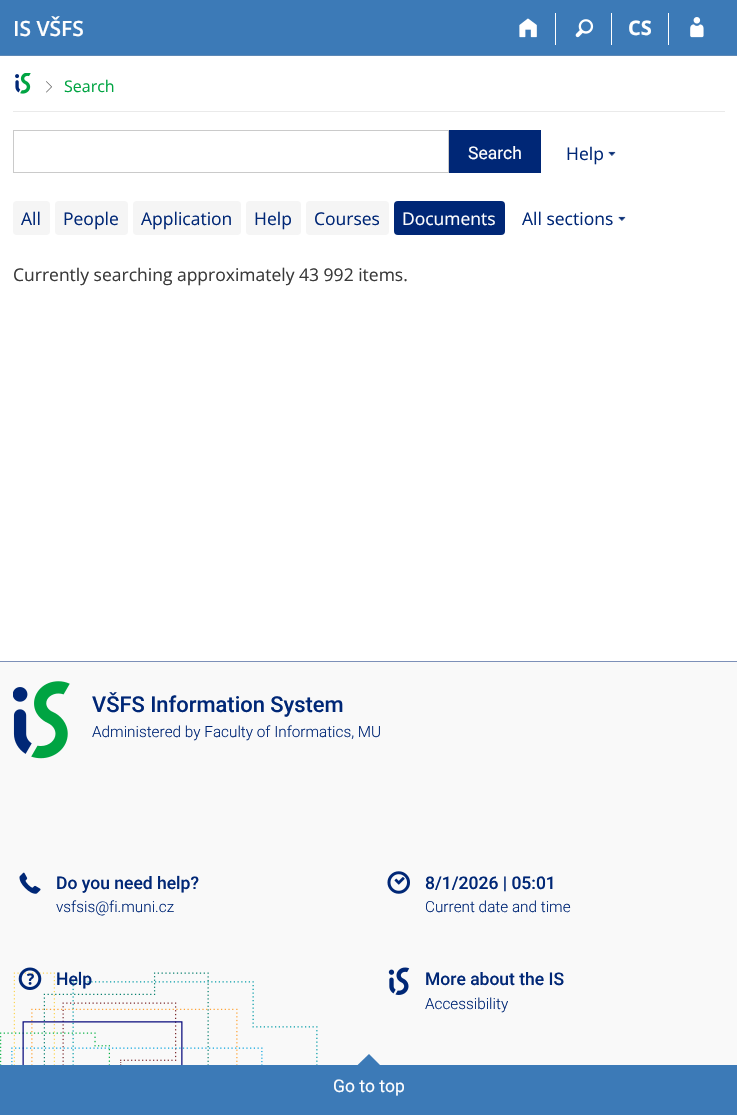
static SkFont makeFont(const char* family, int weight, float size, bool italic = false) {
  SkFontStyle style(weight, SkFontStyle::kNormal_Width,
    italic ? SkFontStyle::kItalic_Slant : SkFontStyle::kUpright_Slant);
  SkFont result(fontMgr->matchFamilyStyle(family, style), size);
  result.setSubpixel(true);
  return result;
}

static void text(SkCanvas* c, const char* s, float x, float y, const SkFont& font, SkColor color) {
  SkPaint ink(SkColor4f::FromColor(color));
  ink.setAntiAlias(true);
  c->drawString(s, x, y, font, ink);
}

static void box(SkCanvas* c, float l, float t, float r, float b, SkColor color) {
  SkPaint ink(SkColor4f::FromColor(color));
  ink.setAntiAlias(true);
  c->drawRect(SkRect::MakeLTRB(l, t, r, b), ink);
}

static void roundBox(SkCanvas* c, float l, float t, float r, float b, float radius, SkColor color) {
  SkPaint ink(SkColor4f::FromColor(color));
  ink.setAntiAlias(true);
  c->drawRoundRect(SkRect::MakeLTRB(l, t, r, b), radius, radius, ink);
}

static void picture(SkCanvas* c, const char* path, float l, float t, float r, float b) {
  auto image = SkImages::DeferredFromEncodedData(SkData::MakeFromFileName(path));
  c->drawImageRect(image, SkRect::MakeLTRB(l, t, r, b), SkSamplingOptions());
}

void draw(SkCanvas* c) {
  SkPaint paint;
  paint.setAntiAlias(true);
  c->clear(0xffffffff);
  box(c, 0, 0, 737, 55, 0xff3c7ab7);
  box(c, 0, 55, 737, 56, 0xff5c88b6);
  SkFont face1 = makeFont("Open Sans", 600, 21);
  text(c, "IS VŠFS", 13, 36, face1, 0xfffefefe);
  box(c, 555, 13, 556, 45, 0xffffffff);
  picture(c, "img_01.png", 519, 18, 537, 38);
  box(c, 611, 13, 612, 45, 0xffffffff);
  picture(c, "img_02.png", 575, 19, 594, 38);
  box(c, 668, 13, 669, 45, 0xffffffff);
  SkFont face2 = makeFont("Open Sans", 700, 20);
  text(c, "CS", 628, 35, face2, 0xfffefefe);
  picture(c, "img_03.png", 690, 17, 704, 38);
  picture(c, "img_04.png", 15, 73, 31, 94);
  picture(c, "img_05.png", 46, 81, 52, 93);
  SkFont face3 = makeFont("Open Sans", 400, 16);
  text(c, "Search", 64, 92, face3, 0xff00a442);
  box(c, 13, 111, 725, 112, 0xffeaeaea);
  paint.setStyle(SkPaint::kStroke_Style);
  paint.setStrokeWidth(1);
  paint.setColor(0xffcacaca);
  c->drawRect(SkRect::MakeLTRB(13.5f, 130.5f, 448.5f, 172.5f), paint);
  box(c, 449, 130, 541, 173, 0xff002776);
  SkFont face4 = makeFont("Roboto", 400, 17.5f);
  text(c, "Search", 468, 159, face4, 0xfffefefe);
  SkFont face5 = makeFont("Open Sans", 400, 17.5f);
  text(c, "Help", 566, 160, face5, 0xff002776);
  picture(c, "img_06.png", 608, 151, 616, 156);
  roundBox(c, 13, 201, 50, 235, 4, 0xfff5f5f5);
  text(c, "All", 21, 225, face5, 0xff002776);
  roundBox(c, 55, 201, 128, 235, 4, 0xfff5f5f5);
  text(c, "People", 63, 225, face5, 0xff002776);
  roundBox(c, 133, 201, 241, 235, 4, 0xfff5f5f5);
  text(c, "Application", 141, 225, face5, 0xff002776);
  roundBox(c, 246, 201, 301, 235, 4, 0xfff5f5f5);
  text(c, "Help", 254, 225, face5, 0xff002776);
  roundBox(c, 306, 201, 389, 235, 4, 0xfff5f5f5);
  text(c, "Courses", 314, 225, face5, 0xff002776);
  roundBox(c, 394, 201, 505, 235, 4, 0xff002776);
  text(c, "Documents", 402, 225, face5, 0xfffefefe);
  text(c, "All sections", 522, 225, face5, 0xff002776);
  picture(c, "img_06.png", 618, 216, 626, 221);
  text(c, "Currently searching approximately 43 992 items.", 13, 281, face5, 0xff3a3a3a);
  box(c, 0, 662, 737, 1065, 0xfff9f9f9);
  box(c, 0, 661, 737, 662, 0xff7d90b8);
  picture(c, "img_07.png", 0, 972, 318, 1065);
  picture(c, "img_08.png", 13, 681, 70, 759);
  SkFont face6 = makeFont("Roboto", 500, 21.9f);
  text(c, "VŠFS Information System", 92, 712, face6, 0xff002776);
  SkFont face7 = makeFont("Roboto", 300, 15.3f);
  text(c, "Administered by Faculty of Informatics, MU", 92, 737, face7, 0xff002776);
  picture(c, "img_09.png", 19, 872, 41, 894);
  SkFont face8 = makeFont("Roboto", 500, 17.5f);
  text(c, "Do you need help?", 56, 889, face8, 0xff002776);
  text(c, "vsfsis@fi.muni.cz", 56, 912, face7, 0xff002776);
  picture(c, "img_10.png", 18, 967, 42, 990);
  text(c, "Help", 56, 985, face8, 0xff002776);
  picture(c, "img_11.png", 387, 871, 410, 894);
  text(c, "8/1/2026 | 05:01", 425, 889, face8, 0xff002776);
  text(c, "Current date and time", 425, 912, face7, 0xff002776);
  picture(c, "img_12.png", 388, 967, 410, 995);
  text(c, "More about the IS", 425, 985, face8, 0xff002776);
  text(c, "Accessibility", 425, 1009, face7, 0xff002776);
  box(c, 0, 1065, 737, 1115, 0xff3c7ab7);
  paint.setStyle(SkPaint::kFill_Style);
  paint.setColor(0xff3c7ab7);
  c->drawPath(SkPathBuilder().moveTo(382.5f, 1067.5f).lineTo(355, 1067.5f).lineTo(369, 1054).close().detach(), paint);
  text(c, "Go to top", 333, 1092, face4, 0xfffefefe);
}
